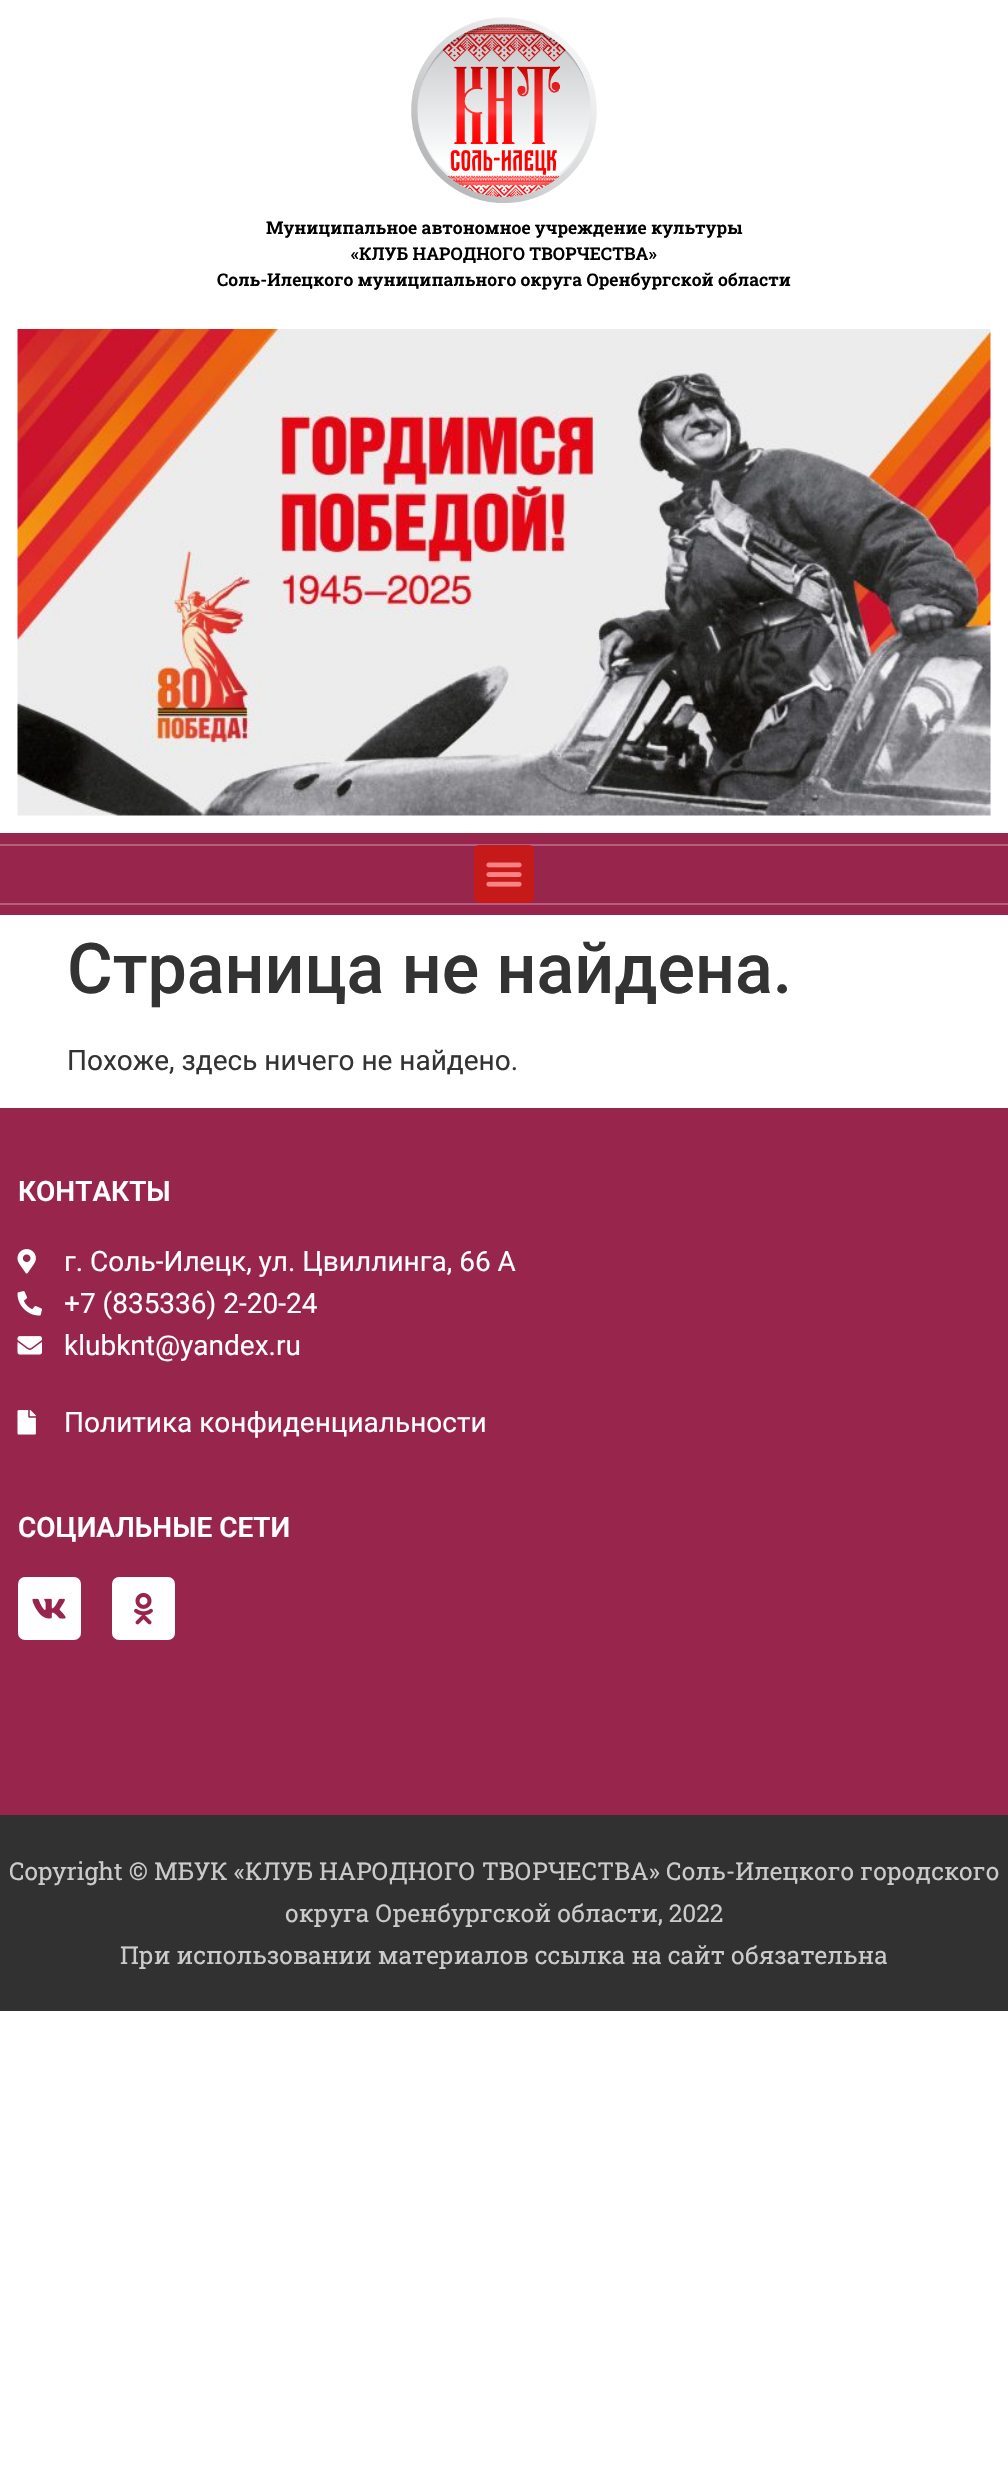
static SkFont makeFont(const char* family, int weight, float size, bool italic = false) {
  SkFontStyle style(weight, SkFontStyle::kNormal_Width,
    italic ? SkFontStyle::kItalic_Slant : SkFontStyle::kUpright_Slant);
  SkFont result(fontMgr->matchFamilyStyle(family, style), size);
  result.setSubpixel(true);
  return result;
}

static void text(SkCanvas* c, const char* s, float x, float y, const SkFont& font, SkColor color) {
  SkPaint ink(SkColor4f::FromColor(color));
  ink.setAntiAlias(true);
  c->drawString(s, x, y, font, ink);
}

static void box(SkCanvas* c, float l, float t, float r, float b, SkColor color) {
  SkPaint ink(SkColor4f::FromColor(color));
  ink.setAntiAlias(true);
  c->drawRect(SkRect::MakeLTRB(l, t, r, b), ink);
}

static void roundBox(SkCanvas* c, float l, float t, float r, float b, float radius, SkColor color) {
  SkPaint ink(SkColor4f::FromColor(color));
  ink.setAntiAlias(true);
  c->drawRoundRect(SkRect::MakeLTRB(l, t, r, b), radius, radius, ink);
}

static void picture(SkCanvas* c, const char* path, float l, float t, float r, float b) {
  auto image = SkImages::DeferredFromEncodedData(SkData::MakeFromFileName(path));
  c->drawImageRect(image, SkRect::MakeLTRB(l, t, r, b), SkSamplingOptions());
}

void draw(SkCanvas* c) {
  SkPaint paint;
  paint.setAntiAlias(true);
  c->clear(0xffffffff);
  picture(c, "img_01.png", 411, 17, 597, 203);
  SkFont face1 = makeFont("Roboto Slab", 600, 17.5f);
  text(c, "Муниципальное автономное учреждение культуры", 266, 234, face1, 0xff000000);
  text(c, "«КЛУБ НАРОДНОГО ТВОРЧЕСТВА»", 351, 260, face1, 0xff000000);
  text(c, "Соль-Илецкого муниципального округа Оренбургской области", 217, 286, face1, 0xff000000);
  picture(c, "img_02.png", 17, 329, 991, 816);
  box(c, 0, 833, 1008, 915, 0xff98254c);
  box(c, 0, 844, 1008, 846, 0xffb65e80);
  box(c, 0, 903, 1008, 905, 0xffb65e80);
  roundBox(c, 474, 845, 534, 903, 5, 0xffc61a1a);
  picture(c, "img_03.png", 486, 862, 522, 887);
  SkFont face2 = makeFont("Roboto", 500, 70);
  text(c, "Страница не найдена.", 67, 993, face2, 0xff333333);
  SkFont face3 = makeFont("Roboto", 400, 28);
  text(c, "Похоже, здесь ничего не найдено.", 67, 1070, face3, 0xff333333);
  box(c, 0, 1108, 1008, 1815, 0xff98254c);
  SkFont face4 = makeFont("Roboto", 600, 28);
  text(c, "КОНТАКТЫ", 18, 1201, face4, 0xffffffff);
  picture(c, "img_04.png", 17, 1249, 36, 1274);
  text(c, "г. Соль-Илецк, ул. Цвиллинга, 66 А", 64, 1271, face3, 0xffffffff);
  picture(c, "img_05.png", 17, 1291, 42, 1316);
  text(c, "+7 (835336) 2-20-24", 64, 1313, face3, 0xffffffff);
  picture(c, "img_06.png", 17, 1336, 42, 1355);
  text(c, "klubknt@yandex.ru", 64, 1355, face3, 0xffffffff);
  picture(c, "img_07.png", 17, 1410, 36, 1435);
  text(c, "Политика конфиденциальности", 64, 1432, face3, 0xffffffff);
  text(c, "СОЦИАЛЬНЫЕ СЕТИ", 18, 1537, face4, 0xffffffff);
  roundBox(c, 18, 1577, 81, 1640, 7, 0xffffffff);
  picture(c, "img_08.png", 32, 1598, 66, 1619);
  roundBox(c, 112, 1577, 175, 1640, 7, 0xffffffff);
  picture(c, "img_09.png", 134, 1592, 153, 1625);
  box(c, 0, 1815, 1008, 2011, 0xff313131);
  SkFont face5 = makeFont("Roboto Slab", 400, 24.5f);
  text(c, "Copyright © МБУК «КЛУБ НАРОДНОГО ТВОРЧЕСТВА» Соль-Илецкого городского", 9, 1880, face5, 0xffcbcbcb);
  text(c, "округа Оренбургской области, 2022", 285, 1922, face5, 0xffcbcbcb);
  text(c, "При использовании материалов ссылка на сайт обязательна", 120, 1964, face5, 0xffcbcbcb);
}
